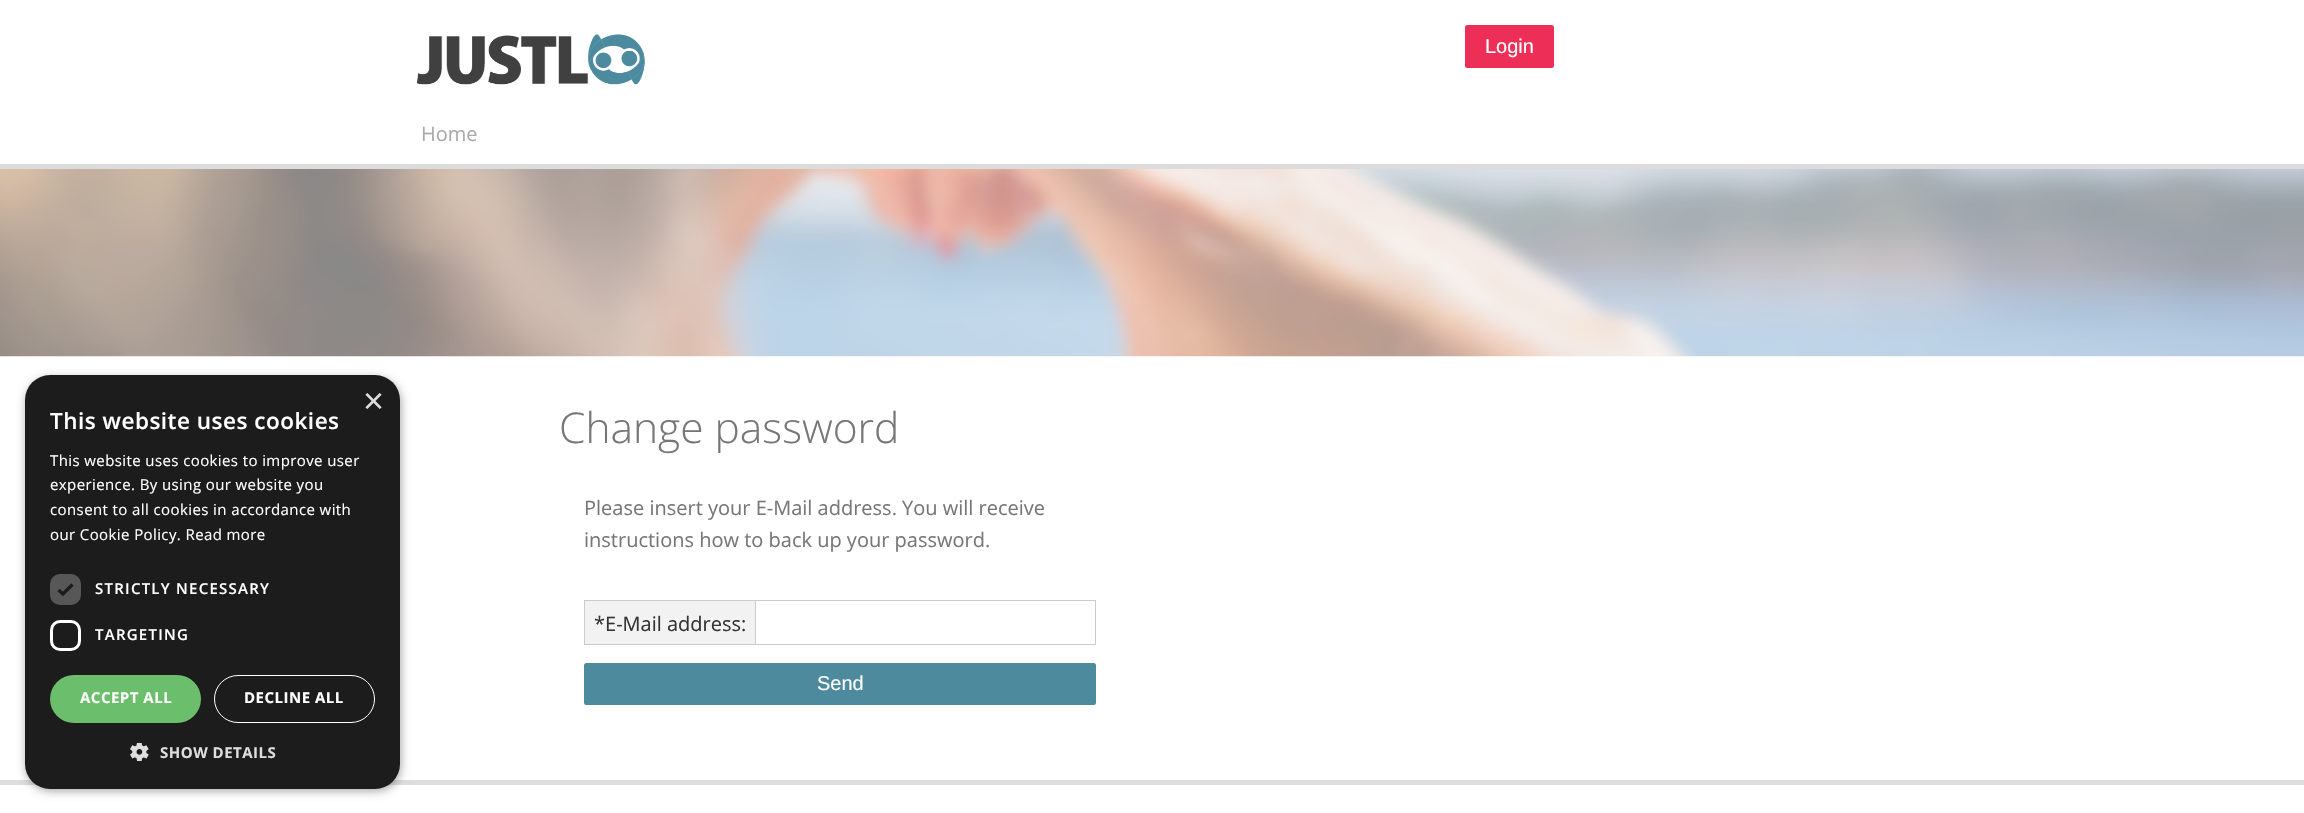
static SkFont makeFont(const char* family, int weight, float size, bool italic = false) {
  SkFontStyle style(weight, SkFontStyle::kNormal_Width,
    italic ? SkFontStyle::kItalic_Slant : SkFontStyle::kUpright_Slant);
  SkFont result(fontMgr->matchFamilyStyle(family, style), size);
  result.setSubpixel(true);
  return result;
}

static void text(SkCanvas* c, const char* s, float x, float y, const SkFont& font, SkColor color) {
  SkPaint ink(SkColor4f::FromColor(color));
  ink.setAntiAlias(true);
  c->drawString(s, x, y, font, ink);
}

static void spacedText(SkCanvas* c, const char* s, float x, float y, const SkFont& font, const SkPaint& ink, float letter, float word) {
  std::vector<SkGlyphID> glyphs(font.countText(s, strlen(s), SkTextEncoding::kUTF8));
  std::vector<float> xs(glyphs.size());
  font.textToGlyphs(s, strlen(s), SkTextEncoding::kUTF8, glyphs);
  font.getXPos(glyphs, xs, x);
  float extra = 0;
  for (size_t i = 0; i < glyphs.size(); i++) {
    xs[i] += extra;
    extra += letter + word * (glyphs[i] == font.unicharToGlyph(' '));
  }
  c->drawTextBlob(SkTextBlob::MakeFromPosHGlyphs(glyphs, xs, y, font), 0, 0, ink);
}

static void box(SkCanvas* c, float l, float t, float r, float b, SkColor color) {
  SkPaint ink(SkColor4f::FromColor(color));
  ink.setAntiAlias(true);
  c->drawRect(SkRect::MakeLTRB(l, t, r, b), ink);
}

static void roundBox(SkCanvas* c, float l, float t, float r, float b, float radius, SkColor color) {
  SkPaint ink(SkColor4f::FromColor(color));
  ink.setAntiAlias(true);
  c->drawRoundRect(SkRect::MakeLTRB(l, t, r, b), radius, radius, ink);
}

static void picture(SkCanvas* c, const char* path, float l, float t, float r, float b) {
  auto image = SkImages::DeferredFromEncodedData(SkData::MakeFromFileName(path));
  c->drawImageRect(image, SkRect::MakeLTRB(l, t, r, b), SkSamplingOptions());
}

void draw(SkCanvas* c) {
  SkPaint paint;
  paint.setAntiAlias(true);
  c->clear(0xffffffff);
  box(c, 0, 780, 2304, 785, 0xffdddddd);
  paint.setColor(0x59000000);
  paint.setMaskFilter(SkMaskFilter::MakeBlur(kNormal_SkBlurStyle, 5));
  c->drawRoundRect(SkRect::MakeLTRB(26, 378, 401, 791), 25, 25, paint);
  paint.setMaskFilter(nullptr);
  roundBox(c, 25, 375, 400, 789, 25, 0xff1c1c1c);
  SkFont face1 = makeFont("Liberation Sans", 400, 36);
  text(c, "×", 363, 413, face1, 0xffdddddd);
  SkFont face2 = makeFont("Open Sans", 600, 22.5f);
  paint.setColor(0xffffffff);
  spacedText(c, "This website uses cookies", 50, 429, face2, paint, 0.5f, 0);
  SkFont face3 = makeFont("Open Sans", 400, 15);
  spacedText(c, "This website uses cookies to improve user", 50, 466, face3, paint, 0.4f, 0);
  spacedText(c, "experience. By using our website you", 50, 490, face3, paint, 0.4f, 0);
  spacedText(c, "consent to all cookies in accordance with", 50, 515, face3, paint, 0.4f, 0);
  spacedText(c, "our Cookie Policy. Read more", 50, 540, face3, paint, 0.4f, 0);
  roundBox(c, 50, 574, 81, 605, 10, 0xff575757);
  paint.setStyle(SkPaint::kStroke_Style);
  paint.setStrokeWidth(3.3f);
  paint.setColor(0xff1c1c1c);
  c->drawPath(SkPathBuilder().moveTo(58.5f, 590).lineTo(63, 594).lineTo(72.5f, 584.5f).detach(), paint);
  SkFont face4 = makeFont("Open Sans", 600, 15);
  paint.setStyle(SkPaint::kFill_Style);
  paint.setColor(0xffffffff);
  spacedText(c, "STRICTLY NECESSARY", 95, 594, face4, paint, 1.25f, 0);
  paint.setStyle(SkPaint::kStroke_Style);
  paint.setStrokeWidth(3);
  c->drawRoundRect(SkRect::MakeLTRB(51.5f, 621.5f, 79.5f, 649.5f), 8.5f, 8.5f, paint);
  paint.setStyle(SkPaint::kFill_Style);
  spacedText(c, "TARGETING", 95, 640, face4, paint, 1.25f, 0);
  roundBox(c, 50, 675, 201, 723, 24, 0xff6bbe6b);
  SkFont face5 = makeFont("Open Sans", 700, 15);
  spacedText(c, "ACCEPT ALL", 80, 703, face5, paint, 0.5f, 0);
  paint.setStyle(SkPaint::kStroke_Style);
  paint.setStrokeWidth(1);
  c->drawRoundRect(SkRect::MakeLTRB(214.5f, 675.5f, 374.5f, 722.5f), 23.5f, 23.5f, paint);
  paint.setStyle(SkPaint::kFill_Style);
  spacedText(c, "DECLINE ALL", 244, 703, face5, paint, 0.5f, 0);
  picture(c, "img_01.png", 130, 743, 149, 761);
  paint.setColor(0xffdddddd);
  spacedText(c, "SHOW DETAILS", 160, 758, face5, paint, 0.5f, 0);
  picture(c, "img_02.png", 416, 34, 645, 85);
  roundBox(c, 1465, 25, 1554, 68, 2.5f, 0xffed2f57);
  SkFont face6 = makeFont("Liberation Sans", 400, 20);
  text(c, "Login", 1485, 53, face6, 0xffffffff);
  box(c, 0, 164, 2304, 169, 0xffdcdcdc);
  SkFont face7 = makeFont("Open Sans", 400, 20);
  text(c, "Home", 421, 141, face7, 0xffaaaaaa);
  picture(c, "img_03.png", 0, 169, 2304, 357);
  SkFont face8 = makeFont("Open Sans", 300, 42.5f);
  text(c, "Change password", 559, 443, face8, 0xff777777);
  text(c, "Please insert your E-Mail address. You will receive", 584, 515, face7, 0xff777777);
  text(c, "instructions how to back up your password.", 584, 547, face7, 0xff777777);
  box(c, 585, 601, 755, 644, 0xfff2f2f2);
  box(c, 584, 600, 755, 601, 0xffcccccc);
  box(c, 584, 644, 755, 645, 0xffcccccc);
  box(c, 584, 600, 585, 645, 0xffcccccc);
  text(c, "*E-Mail address:", 594, 631, face7, 0xff333333);
  paint.setStyle(SkPaint::kStroke_Style);
  paint.setColor(0xffcccccc);
  c->drawRect(SkRect::MakeLTRB(755.5f, 600.5f, 1095.5f, 644.5f), paint);
  roundBox(c, 584, 663, 1096, 705, 2.5f, 0xff4d8a9e);
  text(c, "Send", 817, 690, face6, 0xffffffff);
}
